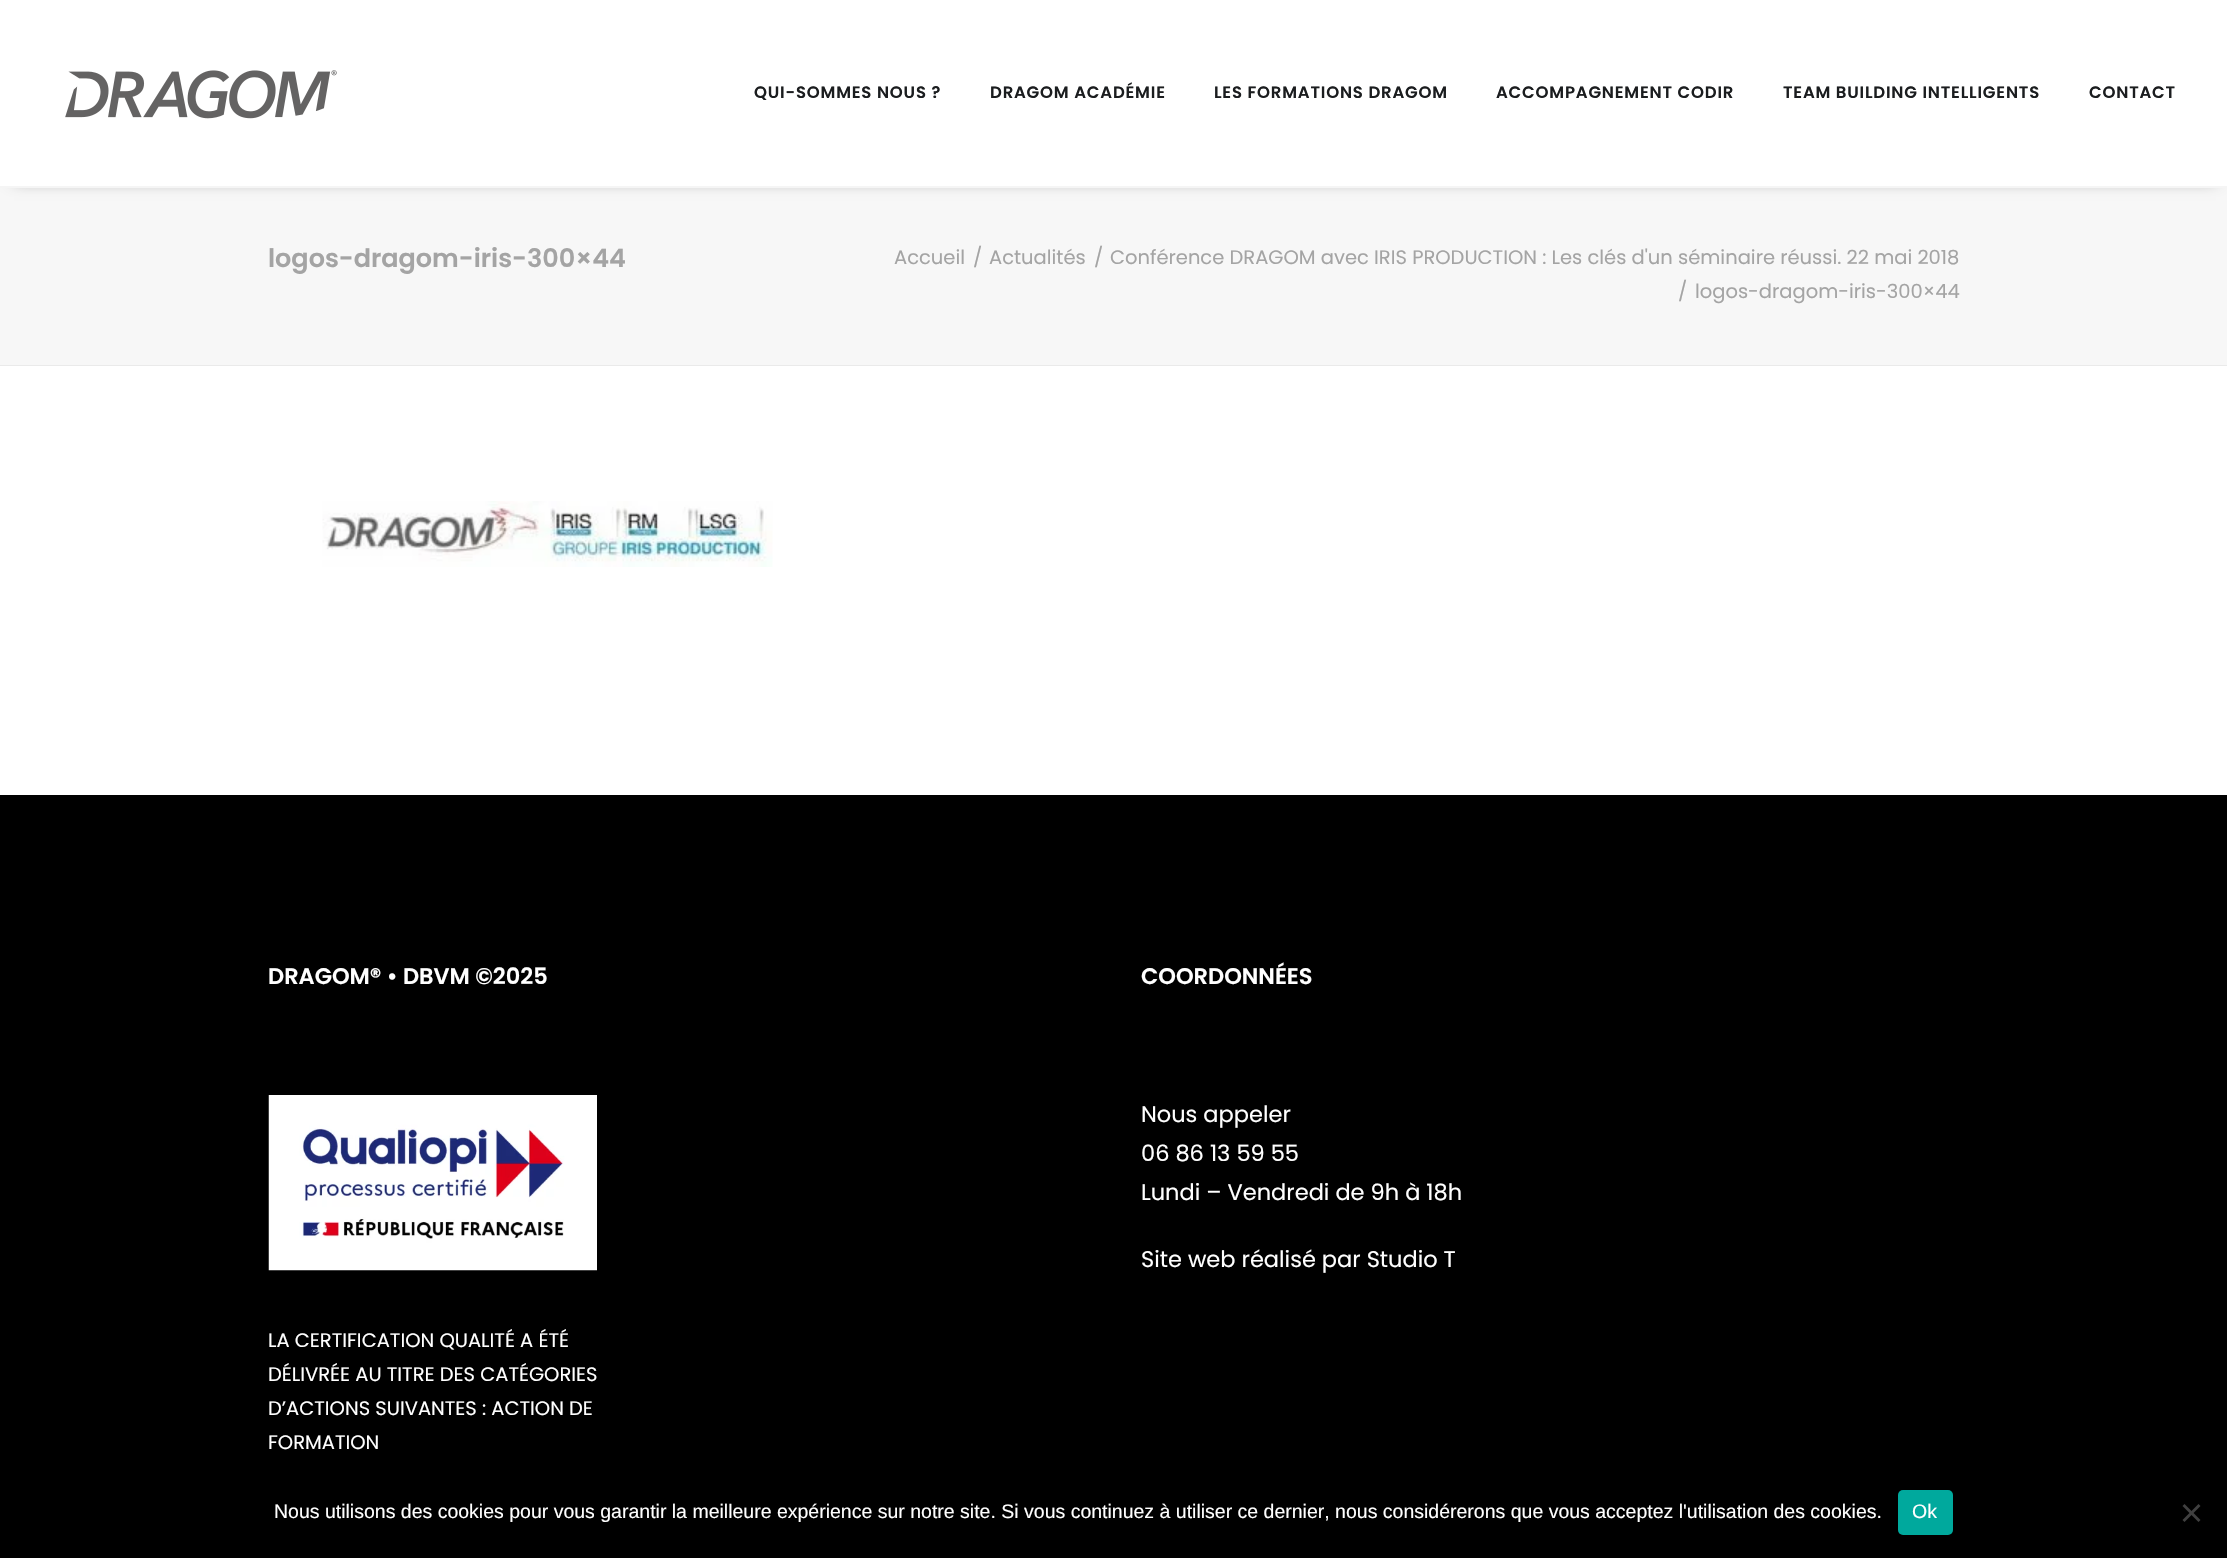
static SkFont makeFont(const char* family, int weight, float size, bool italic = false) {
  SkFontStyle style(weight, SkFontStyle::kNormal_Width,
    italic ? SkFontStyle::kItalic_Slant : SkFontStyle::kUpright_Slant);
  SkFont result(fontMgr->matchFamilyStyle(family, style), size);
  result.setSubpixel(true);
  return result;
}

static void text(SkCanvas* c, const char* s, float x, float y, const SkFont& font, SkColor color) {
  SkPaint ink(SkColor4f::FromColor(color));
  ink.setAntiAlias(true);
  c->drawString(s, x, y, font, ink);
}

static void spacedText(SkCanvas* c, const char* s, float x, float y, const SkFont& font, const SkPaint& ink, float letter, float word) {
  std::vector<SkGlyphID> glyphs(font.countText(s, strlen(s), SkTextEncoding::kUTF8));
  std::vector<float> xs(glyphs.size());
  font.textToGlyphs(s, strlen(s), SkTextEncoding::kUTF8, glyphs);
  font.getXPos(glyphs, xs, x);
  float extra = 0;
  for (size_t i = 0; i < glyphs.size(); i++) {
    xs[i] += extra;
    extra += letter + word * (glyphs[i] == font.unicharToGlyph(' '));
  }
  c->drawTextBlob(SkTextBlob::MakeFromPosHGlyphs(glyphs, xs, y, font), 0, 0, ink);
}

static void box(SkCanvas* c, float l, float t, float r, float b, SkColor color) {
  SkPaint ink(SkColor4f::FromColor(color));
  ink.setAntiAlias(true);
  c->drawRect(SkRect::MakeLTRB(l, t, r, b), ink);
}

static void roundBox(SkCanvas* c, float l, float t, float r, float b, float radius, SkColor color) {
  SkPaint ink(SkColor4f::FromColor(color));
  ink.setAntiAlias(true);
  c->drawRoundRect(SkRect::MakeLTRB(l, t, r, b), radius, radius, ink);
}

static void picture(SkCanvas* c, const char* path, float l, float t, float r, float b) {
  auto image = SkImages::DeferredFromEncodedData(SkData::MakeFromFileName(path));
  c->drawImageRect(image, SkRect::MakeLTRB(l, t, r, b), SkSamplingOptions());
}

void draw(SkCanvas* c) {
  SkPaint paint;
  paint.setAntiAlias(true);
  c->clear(0xfff7f7f7);
  paint.setColor(0x99000000);
  paint.setMaskFilter(SkMaskFilter::MakeBlur(kNormal_SkBlurStyle, 7.5f));
  c->drawRect(SkRect::MakeLTRB(14, 21, 2216, 179), paint);
  paint.setMaskFilter(nullptr);
  box(c, 0, 0, 2227, 186, 0xffffffff);
  box(c, 0, 186, 2227, 188, 0xfff5f5f5);
  picture(c, "img_01.png", 65, 70, 337, 119);
  SkFont face1 = makeFont("Poppins", 600, 16.5f);
  paint.setColor(0xff1b1d1f);
  spacedText(c, "QUI-SOMMES NOUS ?", 754, 98, face1, paint, 0.8f, 0);
  spacedText(c, "DRAGOM ACADÉMIE", 990, 98, face1, paint, 0.8f, 0);
  spacedText(c, "LES FORMATIONS DRAGOM", 1214, 98, face1, paint, 0.8f, 0);
  spacedText(c, "ACCOMPAGNEMENT CODIR", 1496, 98, face1, paint, 0.8f, 0);
  spacedText(c, "TEAM BUILDING INTELLIGENTS", 1783, 98, face1, paint, 0.8f, 0);
  spacedText(c, "CONTACT", 2089, 98, face1, paint, 0.8f, 0);
  box(c, 0, 365, 2227, 366, 0xffeaeaea);
  SkFont face2 = makeFont("Poppins", 600, 25.5f);
  text(c, "logos-dragom-iris-300×44", 268, 267, face2, 0xffa4a4a4);
  SkFont face3 = makeFont("Poppins", 400, 19.5f);
  text(c, "Accueil", 894, 264, face3, 0xffa4a4a4);
  text(c, "/", 973, 264, face3, 0xffa4a4a4);
  text(c, "Actualités", 989, 264, face3, 0xffa4a4a4);
  text(c, "/", 1094, 264, face3, 0xffa4a4a4);
  text(c, "Conférence DRAGOM avec IRIS PRODUCTION : Les clés d'un séminaire réussi. 22 mai 2018", 1110, 264, face3, 0xffa4a4a4);
  text(c, "/", 1678, 298, face3, 0xffa4a4a4);
  text(c, "logos-dragom-iris-300×44", 1695, 298, face3, 0xffa4a4a4);
  box(c, 0, 366, 2227, 795, 0xffffffff);
  picture(c, "img_02.png", 322, 501, 773, 567);
  box(c, 0, 795, 2227, 1558, 0xff000000);
  SkFont face4 = makeFont("Poppins", 600, 22.5f);
  text(c, "DRAGOM® • DBVM ©2025", 268, 984, face4, 0xffffffff);
  picture(c, "img_03.png", 268, 1095, 597, 1271);
  text(c, "LA CERTIFICATION QUALITÉ A ÉTÉ", 268, 1347, face3, 0xffffffff);
  text(c, "DÉLIVRÉE AU TITRE DES CATÉGORIES", 268, 1381, face3, 0xffffffff);
  text(c, "D’ACTIONS SUIVANTES : ACTION DE", 268, 1415, face3, 0xffffffff);
  text(c, "FORMATION", 268, 1449, face3, 0xffffffff);
  text(c, "COORDONNÉES", 1141, 984, face4, 0xffffffff);
  SkFont face5 = makeFont("Poppins", 400, 22.5f);
  text(c, "Nous appeler", 1141, 1122, face5, 0xffffffff);
  text(c, "06 86 13 59 55", 1141, 1161, face5, 0xffffffff);
  text(c, "Lundi – Vendredi de 9h à 18h", 1141, 1200, face5, 0xffffffff);
  text(c, "Site web réalisé par Studio T", 1141, 1267, face5, 0xffffffff);
  SkFont face6 = makeFont("Liberation Sans", 400, 19.5f);
  text(c, "Nous utilisons des cookies pour vous garantir la meilleure expérience sur notre site. Si vous continuez à utiliser ce dernier, nous considérerons que vous acceptez l'utilisation des cookies.", 274, 1518, face6, 0xffffffff);
  roundBox(c, 1898, 1490, 1953, 1535, 5, 0xff00a99d);
  text(c, "Ok", 1912, 1518, face6, 0xffffffff);
  paint.setColor(0xff404040);
  c->drawPath(SkPathBuilder().moveTo(2198.5f, 1504).lineTo(2200.5f, 1506).lineTo(2184.5f, 1522).lineTo(2182.5f, 1520).close().detach(), paint);
  c->drawPath(SkPathBuilder().moveTo(2182.5f, 1506).lineTo(2184.5f, 1504).lineTo(2200.5f, 1520).lineTo(2198.5f, 1522).close().detach(), paint);
}
